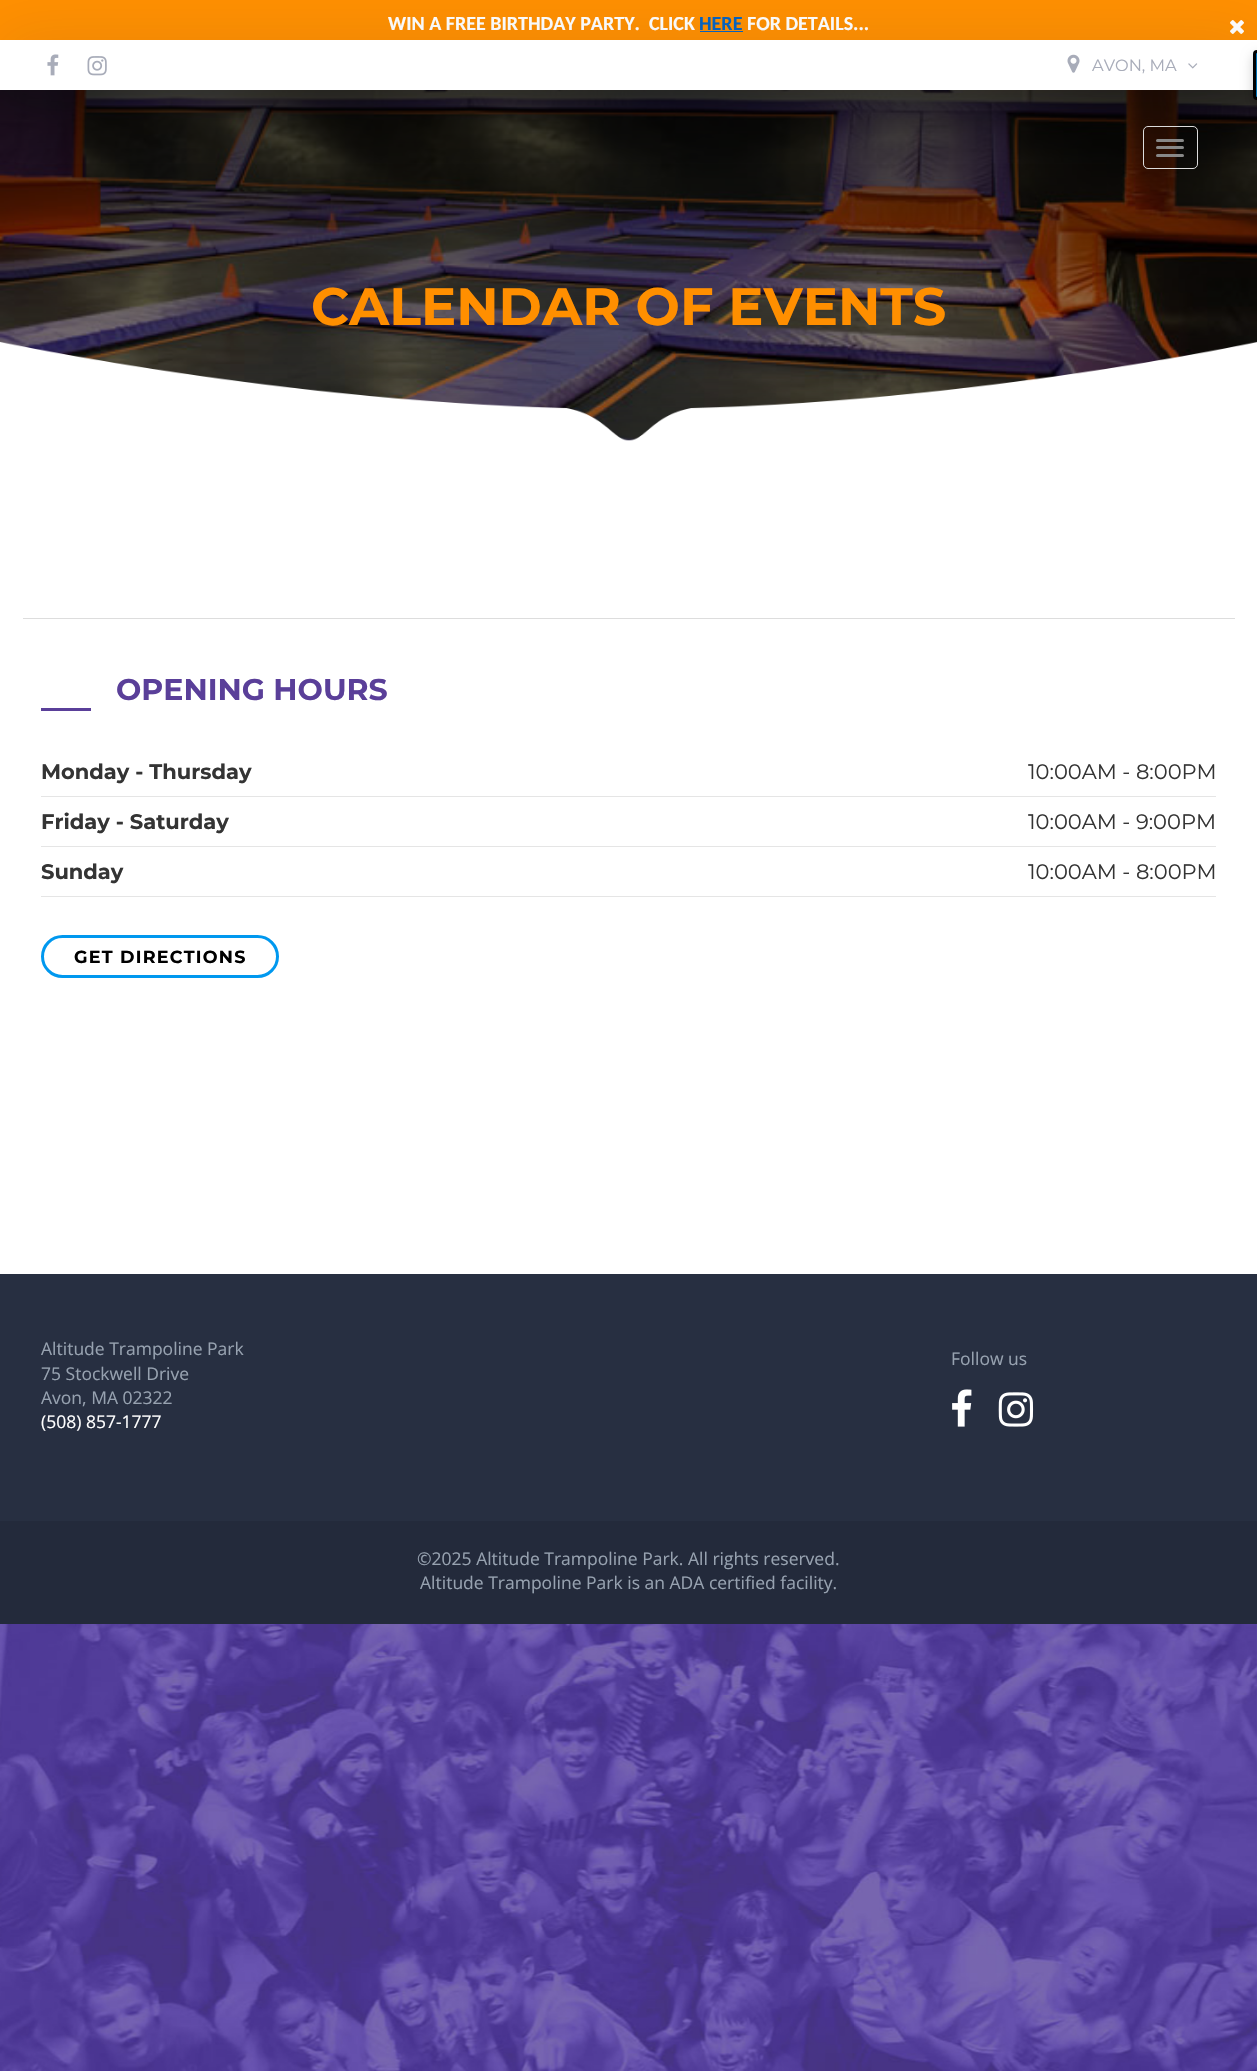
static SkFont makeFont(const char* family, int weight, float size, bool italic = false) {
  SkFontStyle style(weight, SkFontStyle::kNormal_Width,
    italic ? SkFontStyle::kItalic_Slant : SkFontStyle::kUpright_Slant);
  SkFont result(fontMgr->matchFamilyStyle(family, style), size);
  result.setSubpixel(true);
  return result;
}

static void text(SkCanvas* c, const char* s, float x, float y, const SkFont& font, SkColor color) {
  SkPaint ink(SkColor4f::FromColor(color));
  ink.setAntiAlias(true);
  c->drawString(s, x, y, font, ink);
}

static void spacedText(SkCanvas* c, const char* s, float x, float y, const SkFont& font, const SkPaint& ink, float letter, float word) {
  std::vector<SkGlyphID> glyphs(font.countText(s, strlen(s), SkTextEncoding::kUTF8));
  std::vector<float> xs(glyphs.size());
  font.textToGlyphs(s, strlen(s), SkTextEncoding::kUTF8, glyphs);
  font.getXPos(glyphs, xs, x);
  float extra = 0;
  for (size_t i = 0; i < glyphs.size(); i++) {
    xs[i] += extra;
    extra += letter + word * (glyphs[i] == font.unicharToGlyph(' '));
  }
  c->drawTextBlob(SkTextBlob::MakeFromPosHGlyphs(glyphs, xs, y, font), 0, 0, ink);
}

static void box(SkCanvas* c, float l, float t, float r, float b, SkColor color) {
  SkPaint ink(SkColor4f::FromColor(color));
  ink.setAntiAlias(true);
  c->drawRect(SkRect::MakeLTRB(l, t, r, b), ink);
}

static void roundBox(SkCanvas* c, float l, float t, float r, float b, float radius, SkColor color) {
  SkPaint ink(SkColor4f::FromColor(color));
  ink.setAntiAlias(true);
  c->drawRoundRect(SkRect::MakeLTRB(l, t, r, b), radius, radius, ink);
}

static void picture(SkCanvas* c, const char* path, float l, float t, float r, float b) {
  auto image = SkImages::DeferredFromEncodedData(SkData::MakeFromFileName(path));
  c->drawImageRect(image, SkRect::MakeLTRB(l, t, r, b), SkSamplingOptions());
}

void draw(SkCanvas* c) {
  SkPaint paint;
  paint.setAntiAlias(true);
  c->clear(0xffffffff);
  box(c, 0, 0, 1257, 40, 0xffff8f00);
  SkFont face1 = makeFont("Carlito", 700, 20);
  text(c, "WIN A FREE BIRTHDAY PARTY.  CLICK", 388, 30, face1, 0xffffffff);
  text(c, "HERE", 699, 30, face1, 0xff0563c1);
  box(c, 700, 31, 743, 32, 0xff0563c1);
  text(c, "FOR DETAILS...", 747, 30, face1, 0xffffffff);
  picture(c, "img_01.png", 1230, 20, 1244, 34);
  picture(c, "img_06.png", 0, 90, 1257, 441);
  paint.setStyle(SkPaint::kStroke_Style);
  paint.setStrokeWidth(1);
  paint.setColor(0xffdddddd);
  c->drawRoundRect(SkRect::MakeLTRB(1143.5f, 126.5f, 1197.5f, 168.5f), 4.5f, 4.5f, paint);
  roundBox(c, 1156, 139, 1184, 142, 1.5f, 0xff888888);
  roundBox(c, 1156, 146, 1184, 149, 1.5f, 0xff888888);
  roundBox(c, 1156, 154, 1184, 157, 1.5f, 0xff888888);
  paint.setStyle(SkPaint::kFill_Style);
  paint.setColor(0x1a212736);
  paint.setMaskFilter(SkMaskFilter::MakeBlur(kNormal_SkBlurStyle, 31));
  c->drawRect(SkRect::MakeLTRB(0, 40, 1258, 90), paint);
  paint.setMaskFilter(nullptr);
  box(c, 0, 40, 1257, 90, 0xffffffff);
  picture(c, "img_02.png", 47, 54, 59, 76);
  picture(c, "img_03.png", 87, 56, 107, 76);
  picture(c, "img_04.png", 1067, 54, 1080, 73);
  SkFont face2 = makeFont("Montserrat", 400, 16.25f);
  text(c, "AVON, MA", 1092, 71, face2, 0xffa8acb9);
  picture(c, "img_05.png", 1188, 63, 1198, 69);
  paint.setColor(0x33000000);
  paint.setMaskFilter(SkMaskFilter::MakeBlur(kNormal_SkBlurStyle, 6));
  c->drawRoundRect(SkRect::MakeLTRB(1253, 55, 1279, 105), 4, 4, paint);
  paint.setMaskFilter(nullptr);
  paint.setColor(0xff0073b7);
  c->drawPath(SkPathBuilder().moveTo(1257, 51.5f).lineTo(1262.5f, 51.5f).lineTo(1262.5f, 98.5f).lineTo(1257, 98.5f).cubicTo(1255.5f, 98.5f, 1254.5f, 97.5f, 1254.5f, 96).lineTo(1254.5f, 54).cubicTo(1254.5f, 52.5f, 1255.5f, 51.5f, 1257, 51.5f).close().detach(), paint);
  paint.setStyle(SkPaint::kStroke_Style);
  paint.setStrokeWidth(3);
  paint.setColor(0xff000000);
  c->drawPath(SkPathBuilder().moveTo(1257, 51.5f).lineTo(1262.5f, 51.5f).lineTo(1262.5f, 98.5f).lineTo(1257, 98.5f).cubicTo(1255.5f, 98.5f, 1254.5f, 97.5f, 1254.5f, 96).lineTo(1254.5f, 54).cubicTo(1254.5f, 52.5f, 1255.5f, 51.5f, 1257, 51.5f).close().detach(), paint);
  SkFont face3 = makeFont("Montserrat", 700, 52.5f);
  text(c, "CALENDAR OF EVENTS", 311, 325, face3, 0xffff8f00);
  picture(c, "img_07.png", 0, 341, 1257, 461);
  box(c, 23, 618, 1235, 619, 0xffdddddd);
  SkFont face4 = makeFont("Montserrat", 700, 30);
  text(c, "OPENING HOURS", 116, 700, face4, 0xff5a3f99);
  box(c, 41, 708, 91, 711, 0xff5a3f99);
  box(c, 41, 796, 1216, 797, 0xffe5e5e5);
  SkFont face5 = makeFont("Montserrat", 700, 21);
  text(c, "Monday - Thursday", 41, 779, face5, 0xff343434);
  SkFont face6 = makeFont("Montserrat", 400, 21);
  text(c, "10:00AM - 8:00PM", 1028, 779, face6, 0xff343434);
  box(c, 41, 846, 1216, 847, 0xffe5e5e5);
  text(c, "Friday - Saturday", 41, 829, face5, 0xff343434);
  text(c, "10:00AM - 9:00PM", 1028, 829, face6, 0xff343434);
  box(c, 41, 896, 1216, 897, 0xffe5e5e5);
  text(c, "Sunday", 41, 879, face5, 0xff343434);
  text(c, "10:00AM - 8:00PM", 1028, 879, face6, 0xff343434);
  paint.setColor(0xff0098ef);
  c->drawRoundRect(SkRect::MakeLTRB(42.5f, 936.5f, 277.5f, 976.5f), 20, 20, paint);
  SkFont face7 = makeFont("Montserrat", 700, 17.5f);
  paint.setStyle(SkPaint::kFill_Style);
  paint.setColor(0xff000000);
  spacedText(c, "GET DIRECTIONS", 74, 963, face7, paint, 1.25f, 0);
  box(c, 0, 1274, 1257, 1521, 0xff272f41);
  SkFont face8 = makeFont("Open Sans", 400, 17.5f);
  text(c, "Altitude Trampoline Park", 41, 1355, face8, 0xff97a2b0);
  text(c, "75 Stockwell Drive", 41, 1380, face8, 0xff97a2b0);
  text(c, "Avon, MA 02322", 41, 1404, face8, 0xff97a2b0);
  text(c, "(508) 857-1777", 41, 1428, face8, 0xffffffff);
  text(c, "Follow us", 951, 1365, face8, 0xff97a2b0);
  picture(c, "img_08.png", 952, 1389, 972, 1427);
  picture(c, "img_09.png", 998, 1392, 1034, 1427);
  box(c, 0, 1521, 1257, 1624, 0xff232a3b);
  text(c, "©2025 Altitude Trampoline Park. All rights reserved.", 417, 1565, face8, 0xff97a2b0);
  text(c, "Altitude Trampoline Park is an ADA certified facility.", 420, 1589, face8, 0xff97a2b0);
  picture(c, "img_10.png", 0, 1624, 1257, 2071);
}
